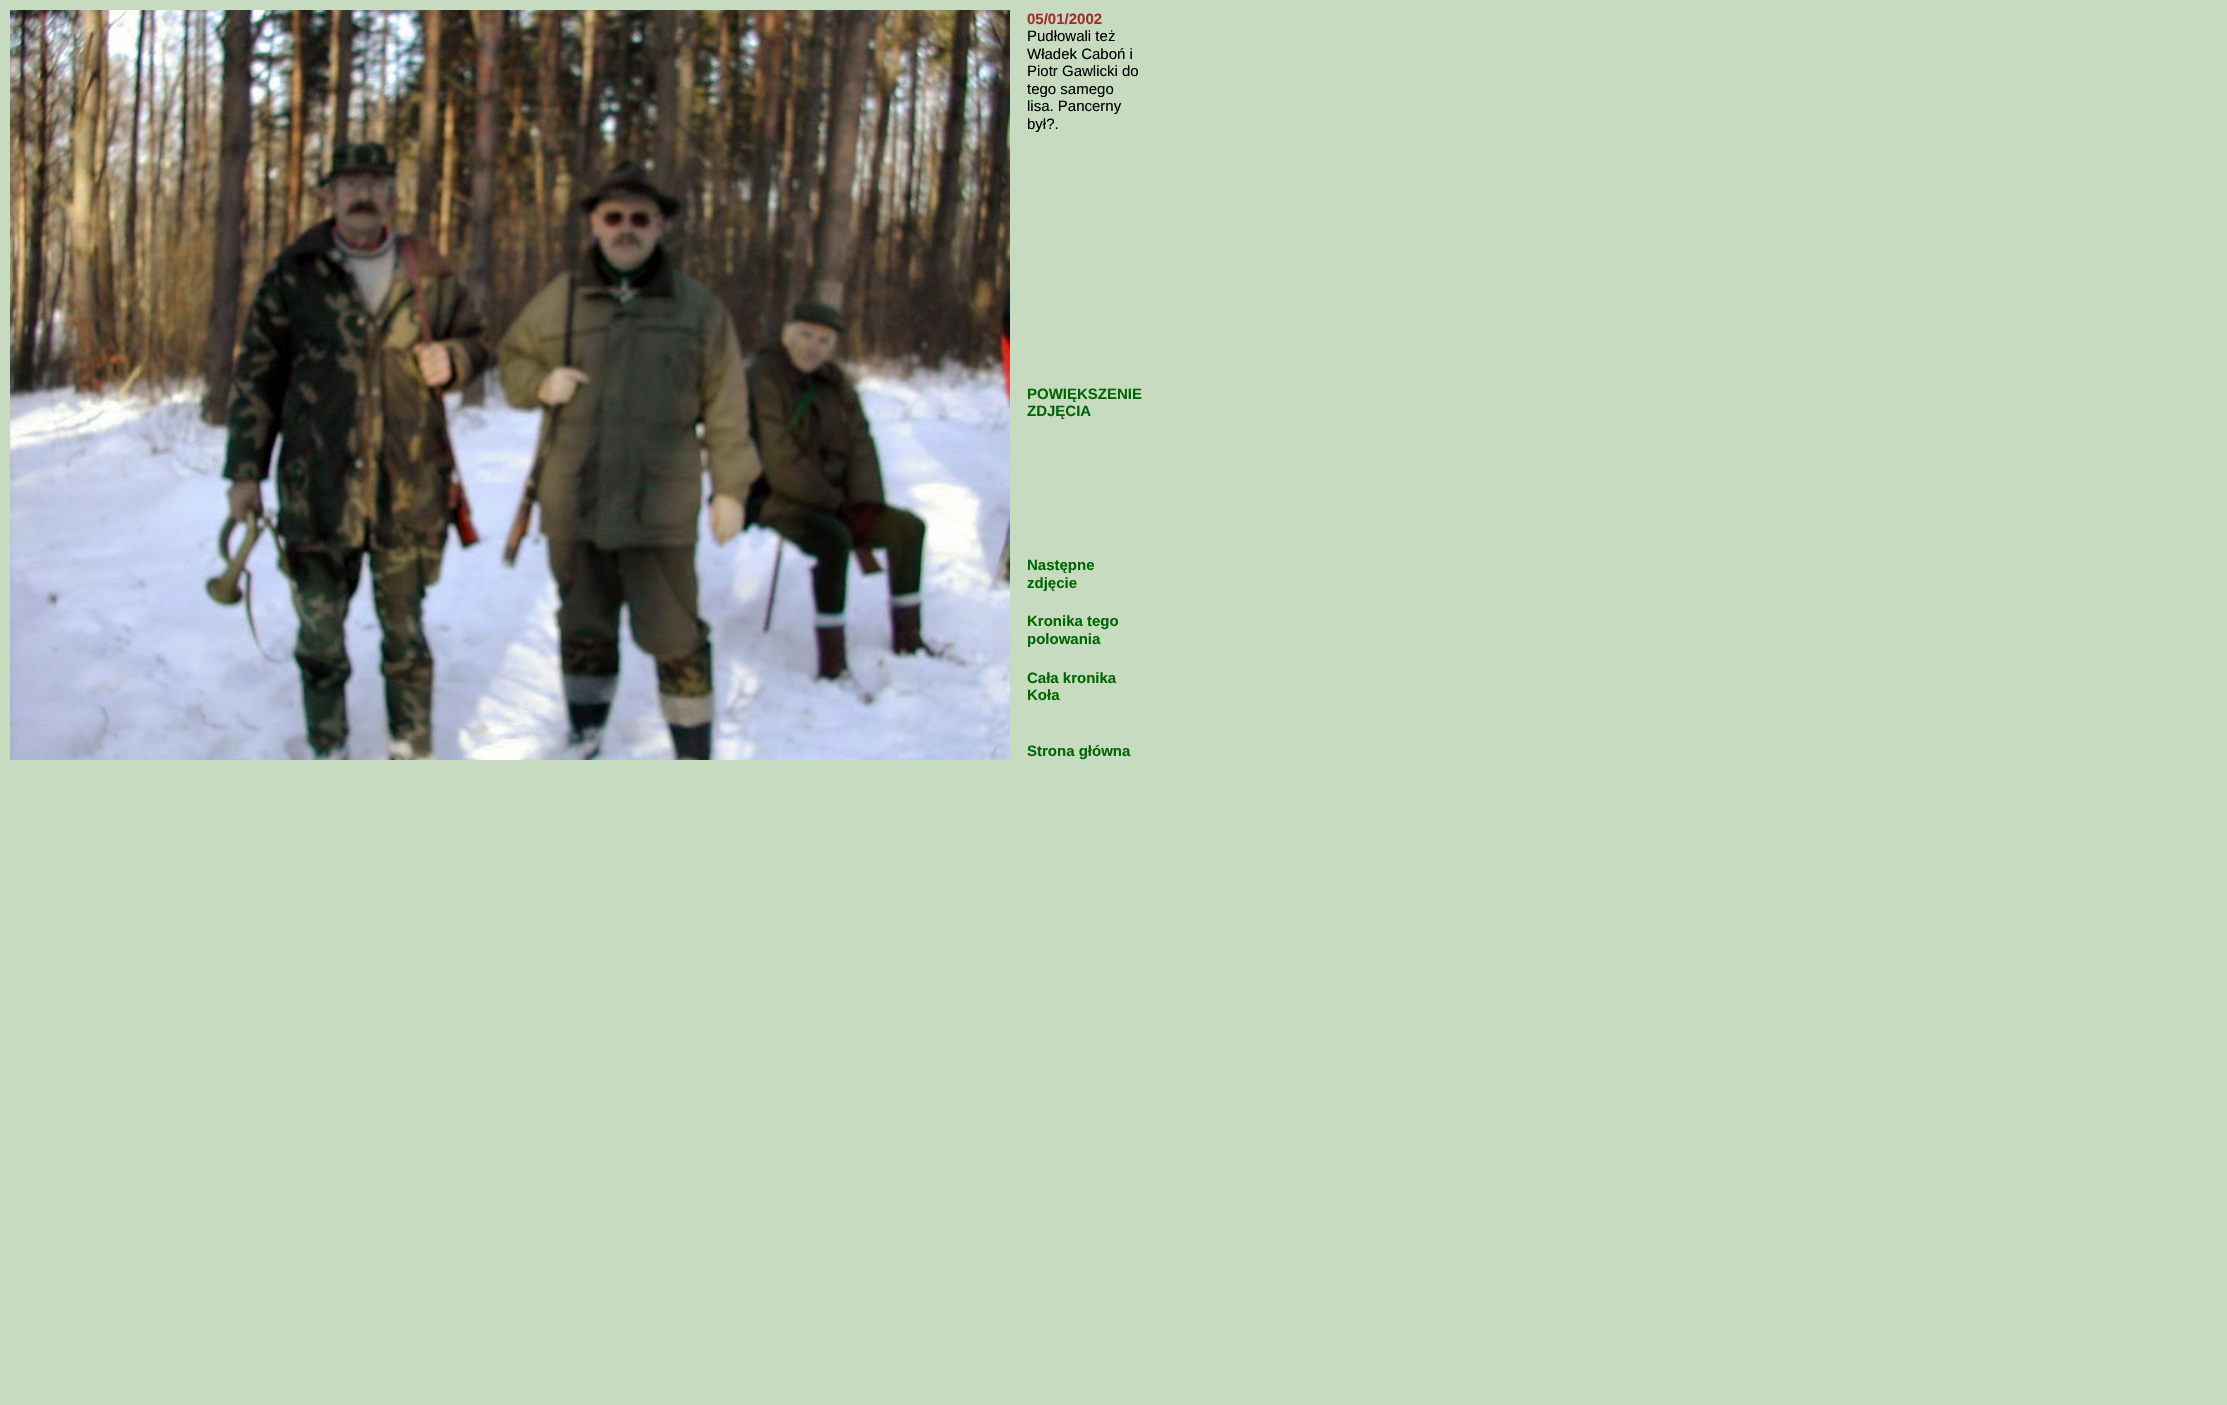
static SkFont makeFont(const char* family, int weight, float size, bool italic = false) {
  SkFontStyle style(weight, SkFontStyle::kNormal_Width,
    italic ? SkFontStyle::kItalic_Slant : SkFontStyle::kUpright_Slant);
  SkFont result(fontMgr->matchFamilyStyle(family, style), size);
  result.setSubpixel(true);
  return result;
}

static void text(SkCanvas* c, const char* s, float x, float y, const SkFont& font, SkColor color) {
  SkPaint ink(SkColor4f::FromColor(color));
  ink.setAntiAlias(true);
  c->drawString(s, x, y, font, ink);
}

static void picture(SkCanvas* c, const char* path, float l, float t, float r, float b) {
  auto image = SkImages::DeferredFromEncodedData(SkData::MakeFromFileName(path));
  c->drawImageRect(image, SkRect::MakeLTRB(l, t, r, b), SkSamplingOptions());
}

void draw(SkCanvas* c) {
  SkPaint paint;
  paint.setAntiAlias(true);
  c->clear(0xffc7dbc1);
  picture(c, "img_01.png", 10, 10, 1010, 760);
  SkFont face1 = makeFont("Liberation Sans", 700, 15);
  text(c, "05/01/2002", 1027, 24, face1, 0xffa52a2a);
  SkFont face2 = makeFont("Liberation Sans", 400, 15);
  text(c, "Pudłowali też", 1027, 41, face2, 0xff000000);
  text(c, "Władek Caboń i", 1027, 59, face2, 0xff000000);
  text(c, "Piotr Gawlicki do", 1027, 76, face2, 0xff000000);
  text(c, "tego samego", 1027, 94, face2, 0xff000000);
  text(c, "lisa. Pancerny", 1027, 111, face2, 0xff000000);
  text(c, "był?.", 1027, 129, face2, 0xff000000);
  text(c, "POWIĘKSZENIE", 1027, 399, face1, 0xff006600);
  text(c, "ZDJĘCIA", 1027, 416, face1, 0xff006600);
  text(c, "Następne", 1027, 570, face1, 0xff006600);
  text(c, "zdjęcie", 1027, 588, face1, 0xff006600);
  text(c, "Kronika tego", 1027, 626, face1, 0xff006600);
  text(c, "polowania", 1027, 644, face1, 0xff006600);
  text(c, "Cała kronika", 1027, 683, face1, 0xff006600);
  text(c, "Koła", 1027, 700, face1, 0xff006600);
  text(c, "Strona główna", 1027, 756, face1, 0xff006600);
}
